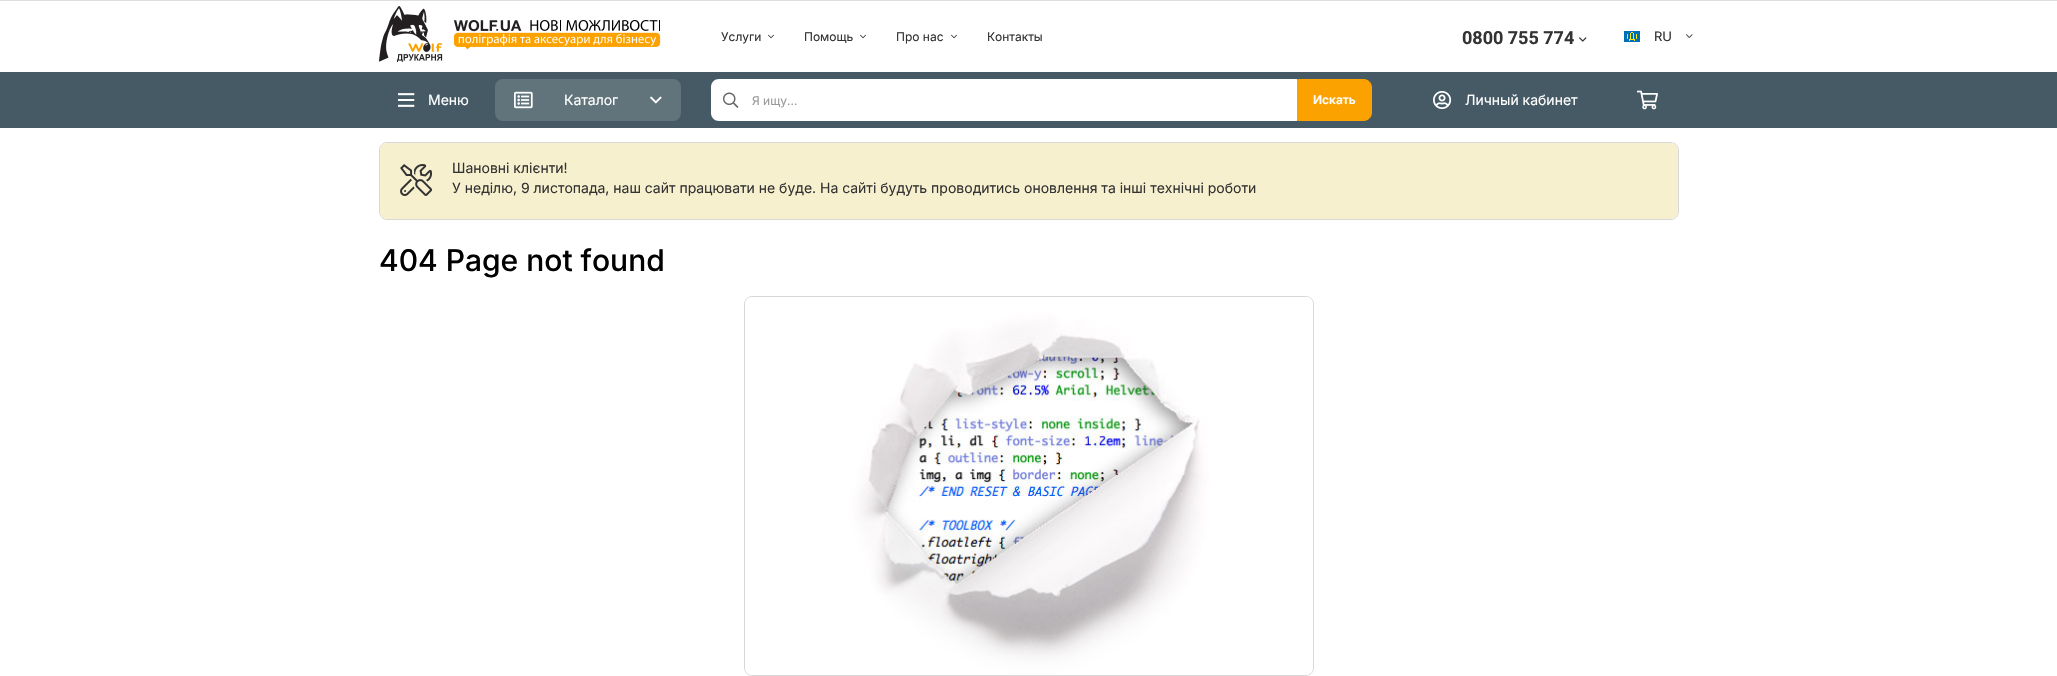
static SkFont makeFont(const char* family, int weight, float size, bool italic = false) {
  SkFontStyle style(weight, SkFontStyle::kNormal_Width,
    italic ? SkFontStyle::kItalic_Slant : SkFontStyle::kUpright_Slant);
  SkFont result(fontMgr->matchFamilyStyle(family, style), size);
  result.setSubpixel(true);
  return result;
}

static void text(SkCanvas* c, const char* s, float x, float y, const SkFont& font, SkColor color) {
  SkPaint ink(SkColor4f::FromColor(color));
  ink.setAntiAlias(true);
  c->drawString(s, x, y, font, ink);
}

static void box(SkCanvas* c, float l, float t, float r, float b, SkColor color) {
  SkPaint ink(SkColor4f::FromColor(color));
  ink.setAntiAlias(true);
  c->drawRect(SkRect::MakeLTRB(l, t, r, b), ink);
}

static void roundBox(SkCanvas* c, float l, float t, float r, float b, float radius, SkColor color) {
  SkPaint ink(SkColor4f::FromColor(color));
  ink.setAntiAlias(true);
  c->drawRoundRect(SkRect::MakeLTRB(l, t, r, b), radius, radius, ink);
}

static void picture(SkCanvas* c, const char* path, float l, float t, float r, float b) {
  auto image = SkImages::DeferredFromEncodedData(SkData::MakeFromFileName(path));
  c->drawImageRect(image, SkRect::MakeLTRB(l, t, r, b), SkSamplingOptions());
}

void draw(SkCanvas* c) {
  SkPaint paint;
  paint.setAntiAlias(true);
  c->clear(0xffffffff);
  box(c, 0, 0, 2057, 1, 0xffdedede);
  picture(c, "img_01.png", 379, 6, 443, 62);
  picture(c, "img_02.png", 453, 20, 661, 50);
  SkFont face1 = makeFont("Inter", 400, 12);
  text(c, "Услуги", 721, 41, face1, 0xff333333);
  picture(c, "img_03.png", 768, 34, 774, 39);
  text(c, "Помощь", 804, 41, face1, 0xff333333);
  picture(c, "img_03.png", 860, 34, 866, 39);
  text(c, "Про нас", 896, 41, face1, 0xff333333);
  picture(c, "img_03.png", 951, 34, 957, 39);
  text(c, "Контакты", 987, 41, face1, 0xff333333);
  SkFont face2 = makeFont("Roboto", 700, 18);
  text(c, "0800 755 774", 1462, 44, face2, 0xff333333);
  picture(c, "img_04.png", 1579, 37, 1587, 42);
  picture(c, "img_05.png", 1624, 31, 1640, 42);
  SkFont face3 = makeFont("Inter", 400, 13);
  text(c, "RU", 1654, 41, face3, 0xff333333);
  picture(c, "img_06.png", 1686, 34, 1693, 38);
  box(c, 0, 72, 2057, 128, 0xff455a64);
  picture(c, "img_07.png", 398, 93, 415, 107);
  SkFont face4 = makeFont("Inter", 400, 14);
  text(c, "Меню", 428, 105, face4, 0xffffffff);
  roundBox(c, 495, 79, 681, 121, 8, 0xff61737b);
  picture(c, "img_08.png", 514, 91, 533, 109);
  text(c, "Каталог", 564, 105, face4, 0xffffffff);
  picture(c, "img_09.png", 650, 96, 662, 104);
  paint.setColor(0xffffffff);
  c->drawPath(SkPathBuilder().moveTo(719, 79).lineTo(1297, 79).lineTo(1297, 121).lineTo(719, 121).cubicTo(714.5f, 121, 711, 117.5f, 711, 113).lineTo(711, 87).cubicTo(711, 82.5f, 714.5f, 79, 719, 79).close().detach(), paint);
  picture(c, "img_10.png", 723, 92, 739, 108);
  text(c, "Я ищу...", 752, 105, face1, 0xff999999);
  paint.setColor(0xfffba100);
  c->drawPath(SkPathBuilder().moveTo(1297.5f, 79.5f).lineTo(1364, 79.5f).cubicTo(1368, 79.5f, 1371.5f, 83, 1371.5f, 87).lineTo(1371.5f, 113).cubicTo(1371.5f, 117, 1368, 120.5f, 1364, 120.5f).lineTo(1297.5f, 120.5f).close().detach(), paint);
  paint.setStyle(SkPaint::kStroke_Style);
  paint.setStrokeWidth(1);
  c->drawPath(SkPathBuilder().moveTo(1297.5f, 79.5f).lineTo(1364, 79.5f).cubicTo(1368, 79.5f, 1371.5f, 83, 1371.5f, 87).lineTo(1371.5f, 113).cubicTo(1371.5f, 117, 1368, 120.5f, 1364, 120.5f).lineTo(1297.5f, 120.5f).close().detach(), paint);
  SkFont face5 = makeFont("Inter", 600, 12);
  text(c, "Искать", 1313, 104, face5, 0xffffffff);
  picture(c, "img_11.png", 1433, 91, 1452, 109);
  text(c, "Личный кабинет", 1465, 105, face4, 0xffffffff);
  picture(c, "img_12.png", 1637, 90, 1658, 110);
  paint.setColor(0xffd8d8d8);
  c->drawRoundRect(SkRect::MakeLTRB(379.5f, 142.5f, 1678.5f, 219.5f), 7.5f, 7.5f, paint);
  roundBox(c, 380, 143, 1678, 219, 7, 0xfff7f0ce);
  picture(c, "img_13.png", 400, 164, 433, 196);
  text(c, "Шановні клієнти!", 452, 173, face4, 0xff333333);
  text(c, "У неділю, 9 листопада, наш сайт працювати не буде. На сайті будуть проводитись оновлення та інші технічні роботи", 452, 193, face4, 0xff333333);
  SkFont face6 = makeFont("Inter", 500, 30);
  text(c, "404 Page not found", 379, 271, face6, 0xff000000);
  c->drawRoundRect(SkRect::MakeLTRB(744.5f, 296.5f, 1313.5f, 675.5f), 7.5f, 7.5f, paint);
  picture(c, "img_14.png", 745, 297, 1313, 675);
}
